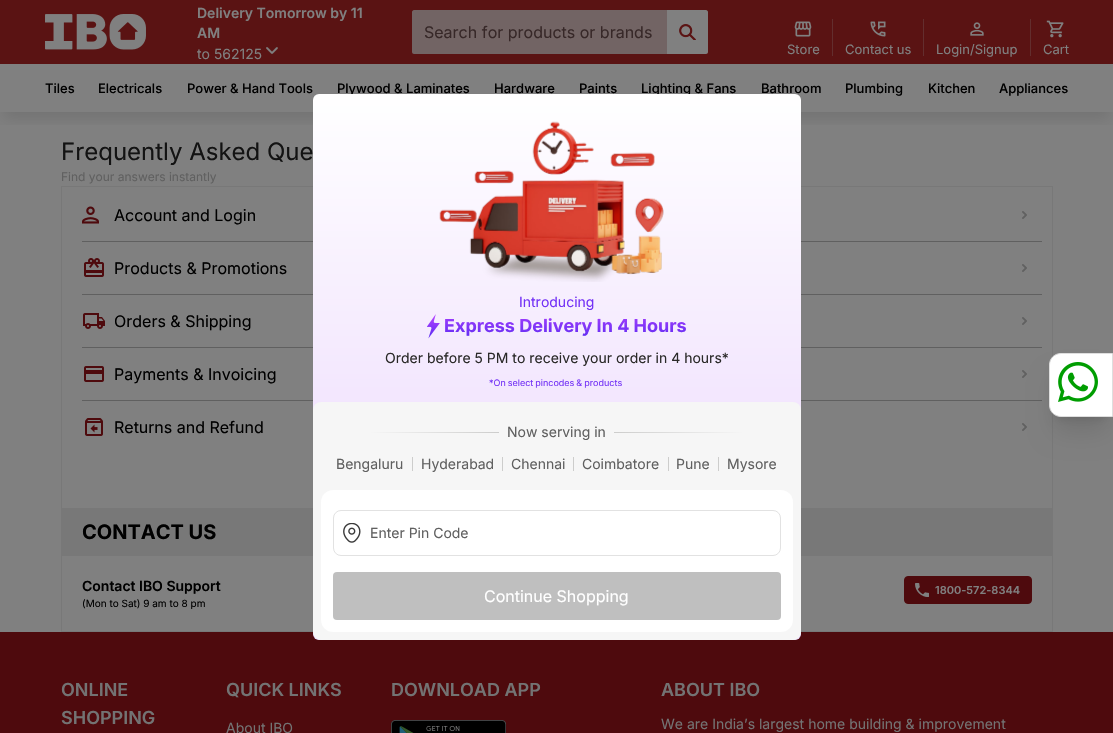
static SkFont makeFont(const char* family, int weight, float size, bool italic = false) {
  SkFontStyle style(weight, SkFontStyle::kNormal_Width,
    italic ? SkFontStyle::kItalic_Slant : SkFontStyle::kUpright_Slant);
  SkFont result(fontMgr->matchFamilyStyle(family, style), size);
  result.setSubpixel(true);
  return result;
}

static void text(SkCanvas* c, const char* s, float x, float y, const SkFont& font, SkColor color) {
  SkPaint ink(SkColor4f::FromColor(color));
  ink.setAntiAlias(true);
  c->drawString(s, x, y, font, ink);
}

static void spacedText(SkCanvas* c, const char* s, float x, float y, const SkFont& font, const SkPaint& ink, float letter, float word) {
  std::vector<SkGlyphID> glyphs(font.countText(s, strlen(s), SkTextEncoding::kUTF8));
  std::vector<float> xs(glyphs.size());
  font.textToGlyphs(s, strlen(s), SkTextEncoding::kUTF8, glyphs);
  font.getXPos(glyphs, xs, x);
  float extra = 0;
  for (size_t i = 0; i < glyphs.size(); i++) {
    xs[i] += extra;
    extra += letter + word * (glyphs[i] == font.unicharToGlyph(' '));
  }
  c->drawTextBlob(SkTextBlob::MakeFromPosHGlyphs(glyphs, xs, y, font), 0, 0, ink);
}

static void box(SkCanvas* c, float l, float t, float r, float b, SkColor color) {
  SkPaint ink(SkColor4f::FromColor(color));
  ink.setAntiAlias(true);
  c->drawRect(SkRect::MakeLTRB(l, t, r, b), ink);
}

static void roundBox(SkCanvas* c, float l, float t, float r, float b, float radius, SkColor color) {
  SkPaint ink(SkColor4f::FromColor(color));
  ink.setAntiAlias(true);
  c->drawRoundRect(SkRect::MakeLTRB(l, t, r, b), radius, radius, ink);
}

static void picture(SkCanvas* c, const char* path, float l, float t, float r, float b) {
  auto image = SkImages::DeferredFromEncodedData(SkData::MakeFromFileName(path));
  c->drawImageRect(image, SkRect::MakeLTRB(l, t, r, b), SkSamplingOptions());
}

void draw(SkCanvas* c) {
  SkPaint paint;
  paint.setAntiAlias(true);
  c->clear(0xff808080);
  box(c, 0, 0, 1113, 64, 0xff5a1313);
  picture(c, "img_01.png", 45, 14, 146, 50);
  SkFont face1 = makeFont("Inter", 600, 14);
  text(c, "Delivery Tomorrow by 11", 197, 18, face1, 0xff808080);
  text(c, "AM", 197, 38, face1, 0xff808080);
  SkFont face2 = makeFont("Inter", 400, 14);
  text(c, "to 562125", 197, 59, face2, 0xff808080);
  picture(c, "img_02.png", 266, 47, 278, 54);
  paint.setColor(0xff726464);
  c->drawPath(SkPathBuilder().moveTo(414, 10).lineTo(667, 10).lineTo(667, 54).lineTo(414, 54).cubicTo(413, 54, 412, 53, 412, 52).lineTo(412, 12).cubicTo(412, 11, 413, 10, 414, 10).close().detach(), paint);
  SkFont face3 = makeFont("Inter", 400, 16);
  text(c, "Search for products or brands", 424, 38, face3, 0xff372828);
  paint.setColor(0xff808080);
  c->drawPath(SkPathBuilder().moveTo(667, 10).lineTo(706, 10).cubicTo(707, 10, 708, 11, 708, 12).lineTo(708, 52).cubicTo(708, 53, 707, 54, 706, 54).lineTo(667, 54).close().detach(), paint);
  picture(c, "img_03.png", 679, 24, 696, 40);
  picture(c, "img_04.png", 794, 21, 812, 37);
  SkFont face4 = makeFont("Inter", 400, 13);
  text(c, "Store", 787, 54, face4, 0xff808080);
  box(c, 832, 19, 833, 56, 0xff632e2e);
  picture(c, "img_05.png", 870, 21, 886, 37);
  text(c, "Contact us", 845, 54, face4, 0xff808080);
  box(c, 923, 19, 924, 56, 0xff632e2e);
  picture(c, "img_06.png", 970, 22, 984, 36);
  text(c, "Login/Signup", 936, 54, face4, 0xff808080);
  box(c, 1030, 19, 1031, 56, 0xff632e2e);
  picture(c, "img_07.png", 1046, 20, 1064, 38);
  text(c, "Cart", 1043, 54, face4, 0xff808080);
  c->save();
  c->clipRect(SkRect::MakeLTRB(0, 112, 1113, 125));
  paint.setColor(0x1a000000);
  paint.setMaskFilter(SkMaskFilter::MakeBlur(kNormal_SkBlurStyle, 7.5f));
  c->drawRect(SkRect::MakeLTRB(3, 77, 1110, 119), paint);
  paint.setMaskFilter(nullptr);
  c->restore();
  SkFont face5 = makeFont("Inter", 500, 13);
  text(c, "Tiles", 45, 93, face5, 0xff000000);
  text(c, "Electricals", 98, 93, face5, 0xff000000);
  text(c, "Power & Hand Tools", 187, 93, face5, 0xff000000);
  text(c, "Plywood & Laminates", 337, 93, face5, 0xff000000);
  text(c, "Hardware", 494, 93, face5, 0xff000000);
  text(c, "Paints", 579, 93, face5, 0xff000000);
  text(c, "Lighting & Fans", 641, 93, face5, 0xff000000);
  text(c, "Bathroom", 761, 93, face5, 0xff000000);
  text(c, "Plumbing", 845, 93, face5, 0xff000000);
  text(c, "Kitchen", 928, 93, face5, 0xff000000);
  text(c, "Appliances", 999, 93, face5, 0xff000000);
  SkFont face6 = makeFont("Inter", 400, 24);
  text(c, "Frequently Asked Que", 61, 160, face6, 0xff131313);
  SkFont face7 = makeFont("Inter", 400, 12);
  text(c, "Find your answers instantly", 61, 181, face7, 0xff606060);
  paint.setStyle(SkPaint::kStroke_Style);
  paint.setStrokeWidth(1);
  paint.setColor(0xff787878);
  c->drawRect(SkRect::MakeLTRB(61.5f, 186.5f, 1052.5f, 631.5f), paint);
  box(c, 82, 241, 1042, 242, 0xff606060);
  picture(c, "img_08.png", 82, 206, 99, 224);
  text(c, "Account and Login", 114, 221, face3, 0xff000000);
  picture(c, "img_09.png", 1022, 211, 1027, 219);
  box(c, 82, 294, 1042, 295, 0xff606060);
  picture(c, "img_10.png", 84, 258, 104, 277);
  text(c, "Products & Promotions", 114, 274, face3, 0xff000000);
  picture(c, "img_09.png", 1022, 264, 1027, 272);
  box(c, 82, 347, 1042, 348, 0xff606060);
  picture(c, "img_11.png", 83, 313, 105, 329);
  text(c, "Orders & Shipping", 114, 327, face3, 0xff000000);
  picture(c, "img_09.png", 1022, 317, 1027, 325);
  box(c, 82, 400, 1042, 401, 0xff606060);
  picture(c, "img_12.png", 84, 366, 104, 382);
  text(c, "Payments & Invoicing", 114, 380, face3, 0xff000000);
  picture(c, "img_09.png", 1022, 370, 1027, 378);
  picture(c, "img_13.png", 85, 418, 103, 436);
  text(c, "Returns and Refund", 114, 433, face3, 0xff000000);
  picture(c, "img_09.png", 1022, 423, 1027, 431);
  box(c, 62, 508, 1052, 556, 0xff787878);
  SkFont face8 = makeFont("Inter", 700, 20);
  text(c, "CONTACT US", 82, 539, face8, 0xff000000);
  text(c, "Contact IBO Support", 82, 591, face1, 0xff000000);
  SkFont face9 = makeFont("Inter", 400, 10);
  text(c, "(Mon to Sat) 9 am to 8 pm", 82, 607, face9, 0xff000000);
  paint.setStyle(SkPaint::kFill_Style);
  paint.setColor(0xff4e0a0d);
  c->drawRoundRect(SkRect::MakeLTRB(904.5f, 576.5f, 1031.5f, 603.5f), 3.5f, 3.5f, paint);
  paint.setStyle(SkPaint::kStroke_Style);
  c->drawRoundRect(SkRect::MakeLTRB(904.5f, 576.5f, 1031.5f, 603.5f), 3.5f, 3.5f, paint);
  picture(c, "img_14.png", 915, 583, 929, 597);
  SkFont face10 = makeFont("Inter", 600, 11);
  text(c, "1800-572-8344", 935, 594, face10, 0xff808080);
  box(c, 0, 632, 1113, 733, 0xff4e0a0d);
  paint.setStyle(SkPaint::kFill_Style);
  {
    const SkColor colors[] = {0xffffffff, 0xfff4e9fe, 0xffe9d5ff};
    const float stops[] = {0, 0.5f, 1};
    const SkPoint ends[] = {{557, 94}, {557, 640}};
    paint.setShader(SkGradientShader::MakeLinear(ends, colors, stops, 3, SkTileMode::kClamp));
    paint.setAlpha(255);
  }
  c->drawRoundRect(SkRect::MakeLTRB(313, 94, 801, 640), 6, 6, paint);
  picture(c, "img_15.png", 439, 121, 664, 282);
  text(c, "Introducing", 519, 307, face2, 0xff7332f6);
  picture(c, "img_16.png", 427, 314, 440, 339);
  SkFont face11 = makeFont("Inter", 700, 18);
  {
    const SkColor colors[] = {0xffac40ff, 0xff582bf1};
    const float stops[] = {0, 1};
    const SkPoint ends[] = {{565, 312}, {565, 340}};
    paint.setShader(SkGradientShader::MakeLinear(ends, colors, stops, 2, SkTileMode::kClamp));
    paint.setAlpha(255);
  }
  c->drawString("Express Delivery In 4 Hours", 444, 332, face11, paint);
  text(c, "Order before 5 PM to receive your order in 4 hours*", 385, 363, face2, 0xff2b2a29);
  SkFont face12 = makeFont("Inter", 400, 9);
  paint.setShader(nullptr);
  paint.setColor(0xff7332f6);
  spacedText(c, "*On select pincodes & products", 489, 386, face12, paint, 0, -0.5f);
  roundBox(c, 313, 402, 801, 640, 8, 0xfff6f6f6);
  {
    const SkColor colors[] = {0xfff6f6f6, 0xffcdcdcc};
    const float stops[] = {0, 1};
    const SkPoint ends[] = {{369, 432}, {499, 432}};
    paint.setShader(SkGradientShader::MakeLinear(ends, colors, stops, 2, SkTileMode::kClamp));
    paint.setAlpha(255);
  }
  c->drawRect(SkRect::MakeLTRB(369, 432, 499, 433), paint);
  text(c, "Now serving in", 507, 437, face2, 0xff606060);
  {
    const SkColor colors[] = {0xffcdcdcc, 0xfff6f6f6};
    const float stops[] = {0, 1};
    const SkPoint ends[] = {{614, 432}, {744, 432}};
    paint.setShader(SkGradientShader::MakeLinear(ends, colors, stops, 2, SkTileMode::kClamp));
    paint.setAlpha(255);
  }
  c->drawRect(SkRect::MakeLTRB(614, 432, 744, 433), paint);
  text(c, "Bengaluru", 336, 469, face2, 0xff606060);
  box(c, 412, 457, 413, 471, 0xffcdcdcc);
  text(c, "Hyderabad", 421, 469, face2, 0xff606060);
  box(c, 502, 457, 503, 471, 0xffcdcdcc);
  text(c, "Chennai", 511, 469, face2, 0xff606060);
  box(c, 573, 457, 574, 471, 0xffcdcdcc);
  text(c, "Coimbatore", 582, 469, face2, 0xff606060);
  box(c, 668, 457, 669, 471, 0xffcdcdcc);
  text(c, "Pune", 676, 469, face2, 0xff606060);
  box(c, 718, 457, 719, 471, 0xffcdcdcc);
  text(c, "Mysore", 727, 469, face2, 0xff606060);
  roundBox(c, 321, 490, 793, 632, 12, 0xffffffff);
  paint.setStyle(SkPaint::kStroke_Style);
  paint.setShader(nullptr);
  paint.setColor(0xffe2e2e2);
  c->drawRoundRect(SkRect::MakeLTRB(333.5f, 510.5f, 780.5f, 555.5f), 7.5f, 7.5f, paint);
  picture(c, "img_17.png", 343, 523, 361, 543);
  text(c, "Enter Pin Code", 370, 538, face2, 0xff606060);
  roundBox(c, 333, 572, 781, 620, 4, 0xffbfbfbf);
  text(c, "Continue Shopping", 484, 602, face3, 0xffffffff);
  paint.setStyle(SkPaint::kFill_Style);
  paint.setColor(0x1a000000);
  paint.setMaskFilter(SkMaskFilter::MakeBlur(kNormal_SkBlurStyle, 5));
  c->drawRoundRect(SkRect::MakeLTRB(1055, 367, 1107, 419), 6, 6, paint);
  paint.setMaskFilter(nullptr);
  paint.setMaskFilter(SkMaskFilter::MakeBlur(kNormal_SkBlurStyle, 12.5f));
  c->drawRoundRect(SkRect::MakeLTRB(1054, 378, 1108, 432), 7, 7, paint);
  paint.setMaskFilter(nullptr);
  paint.setColor(0xffffffff);
  c->drawPath(SkPathBuilder().moveTo(1061, 353.5f).lineTo(1112.5f, 353.5f).lineTo(1112.5f, 416.5f).lineTo(1061, 416.5f).cubicTo(1054.5f, 416.5f, 1049.5f, 411.5f, 1049.5f, 405).lineTo(1049.5f, 365).cubicTo(1049.5f, 358.5f, 1054.5f, 353.5f, 1061, 353.5f).close().detach(), paint);
  paint.setStyle(SkPaint::kStroke_Style);
  paint.setColor(0xffdedede);
  c->drawPath(SkPathBuilder().moveTo(1061, 353.5f).lineTo(1112.5f, 353.5f).lineTo(1112.5f, 416.5f).lineTo(1061, 416.5f).cubicTo(1054.5f, 416.5f, 1049.5f, 411.5f, 1049.5f, 405).lineTo(1049.5f, 365).cubicTo(1049.5f, 358.5f, 1054.5f, 353.5f, 1061, 353.5f).close().detach(), paint);
  picture(c, "img_18.png", 1058, 362, 1098, 402);
  SkFont face13 = makeFont("Inter", 600, 18);
  text(c, "ONLINE", 61, 696, face13, 0xff737373);
  text(c, "SHOPPING", 61, 724, face13, 0xff737373);
  text(c, "QUICK LINKS", 226, 696, face13, 0xff737373);
  text(c, "About IBO", 226, 733, face2, 0xff737373);
  text(c, "DOWNLOAD APP", 391, 696, face13, 0xff737373);
  picture(c, "img_19.png", 391, 720, 506, 733);
  text(c, "ABOUT IBO", 661, 696, face13, 0xff737373);
  text(c, "We are India’s largest home building & improvement", 661, 729, face2, 0xff737373);
}
